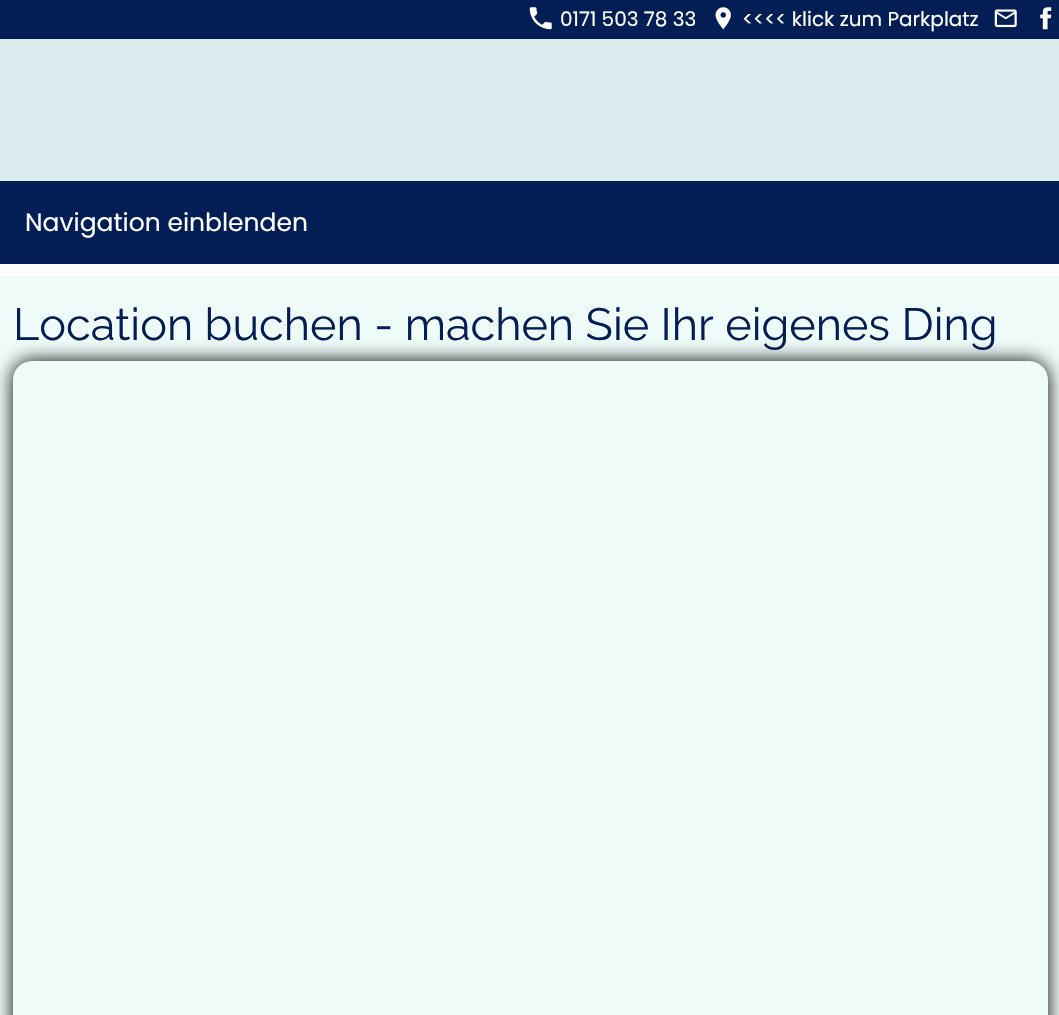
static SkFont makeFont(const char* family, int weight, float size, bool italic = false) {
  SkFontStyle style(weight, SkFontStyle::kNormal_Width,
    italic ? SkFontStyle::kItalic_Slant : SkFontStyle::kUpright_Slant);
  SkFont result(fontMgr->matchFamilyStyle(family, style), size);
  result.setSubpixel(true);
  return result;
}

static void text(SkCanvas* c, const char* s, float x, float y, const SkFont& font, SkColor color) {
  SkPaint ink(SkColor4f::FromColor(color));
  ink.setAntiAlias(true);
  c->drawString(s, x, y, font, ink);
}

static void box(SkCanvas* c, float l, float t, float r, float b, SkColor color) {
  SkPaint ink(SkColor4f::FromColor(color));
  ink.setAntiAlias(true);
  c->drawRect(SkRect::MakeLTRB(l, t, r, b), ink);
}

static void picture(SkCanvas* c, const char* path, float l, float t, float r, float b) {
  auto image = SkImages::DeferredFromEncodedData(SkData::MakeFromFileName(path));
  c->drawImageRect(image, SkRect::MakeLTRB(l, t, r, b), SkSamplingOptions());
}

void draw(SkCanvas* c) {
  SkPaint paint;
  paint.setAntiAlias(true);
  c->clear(0xff031e54);
  picture(c, "img_01.png", 529, 7, 552, 30);
  SkFont face1 = makeFont("Poppins", 400, 20);
  text(c, "0171 503 78 33", 560, 26, face1, 0xffffffff);
  picture(c, "img_02.png", 715, 7, 731, 30);
  text(c, "<<<< klick zum Parkplatz", 742, 26, face1, 0xffffffff);
  picture(c, "img_03.png", 994, 9, 1017, 28);
  picture(c, "img_04.png", 1040, 7, 1052, 30);
  box(c, 0, 39, 1059, 181, 0xffdaeced);
  SkFont face2 = makeFont("Poppins", 400, 25);
  text(c, "Navigation einblenden", 25, 231, face2, 0xffffffff);
  box(c, 0, 264, 1059, 276, 0xffffffff);
  box(c, 0, 276, 1059, 1015, 0xffeffbf9);
  SkFont face3 = makeFont("Raleway", 400, 45);
  text(c, "Location buchen - machen Sie Ihr eigenes Ding", 13, 340, face3, 0xff031e54);
  c->save();
  c->clipPath(SkPathBuilder(SkPathFillType::kEvenOdd).moveTo(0, 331).lineTo(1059, 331).lineTo(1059, 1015).lineTo(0, 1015).close().moveTo(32, 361).lineTo(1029, 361).cubicTo(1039.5f, 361, 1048, 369.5f, 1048, 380).lineTo(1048, 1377).cubicTo(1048, 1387.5f, 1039.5f, 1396, 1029, 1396).lineTo(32, 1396).cubicTo(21.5f, 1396, 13, 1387.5f, 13, 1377).lineTo(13, 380).cubicTo(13, 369.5f, 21.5f, 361, 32, 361).close().detach(), true);
  paint.setColor(0xff000000);
  paint.setMaskFilter(SkMaskFilter::MakeBlur(kNormal_SkBlurStyle, 9.5f));
  c->drawRoundRect(SkRect::MakeLTRB(13, 361, 1048, 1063), 19, 19, paint);
  paint.setMaskFilter(nullptr);
  c->restore();
}
